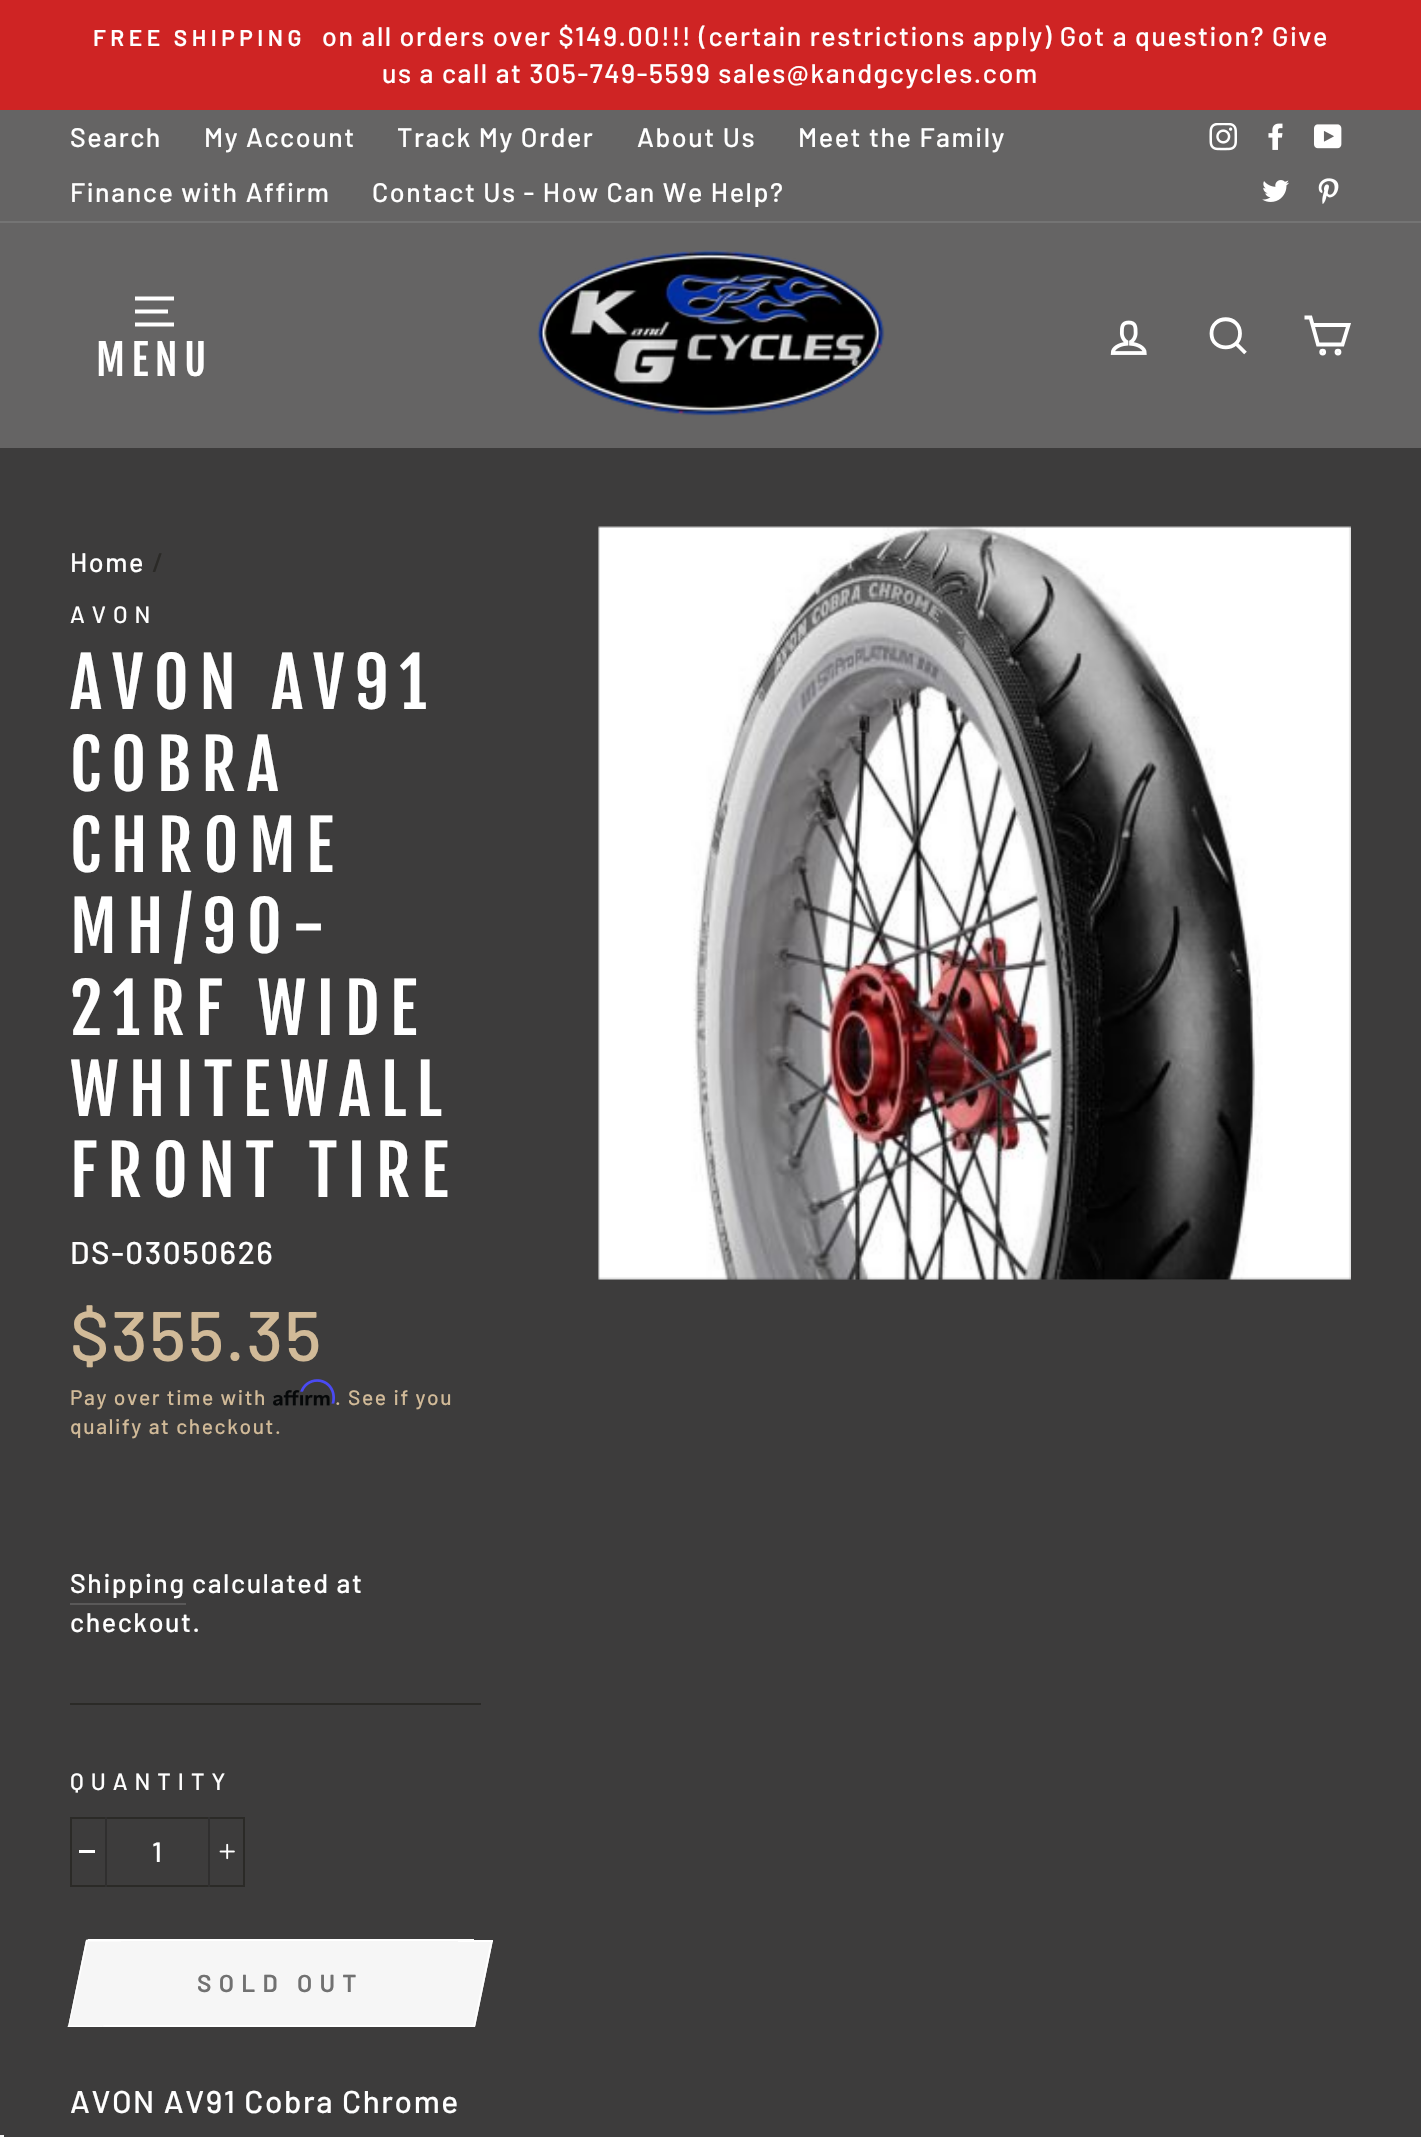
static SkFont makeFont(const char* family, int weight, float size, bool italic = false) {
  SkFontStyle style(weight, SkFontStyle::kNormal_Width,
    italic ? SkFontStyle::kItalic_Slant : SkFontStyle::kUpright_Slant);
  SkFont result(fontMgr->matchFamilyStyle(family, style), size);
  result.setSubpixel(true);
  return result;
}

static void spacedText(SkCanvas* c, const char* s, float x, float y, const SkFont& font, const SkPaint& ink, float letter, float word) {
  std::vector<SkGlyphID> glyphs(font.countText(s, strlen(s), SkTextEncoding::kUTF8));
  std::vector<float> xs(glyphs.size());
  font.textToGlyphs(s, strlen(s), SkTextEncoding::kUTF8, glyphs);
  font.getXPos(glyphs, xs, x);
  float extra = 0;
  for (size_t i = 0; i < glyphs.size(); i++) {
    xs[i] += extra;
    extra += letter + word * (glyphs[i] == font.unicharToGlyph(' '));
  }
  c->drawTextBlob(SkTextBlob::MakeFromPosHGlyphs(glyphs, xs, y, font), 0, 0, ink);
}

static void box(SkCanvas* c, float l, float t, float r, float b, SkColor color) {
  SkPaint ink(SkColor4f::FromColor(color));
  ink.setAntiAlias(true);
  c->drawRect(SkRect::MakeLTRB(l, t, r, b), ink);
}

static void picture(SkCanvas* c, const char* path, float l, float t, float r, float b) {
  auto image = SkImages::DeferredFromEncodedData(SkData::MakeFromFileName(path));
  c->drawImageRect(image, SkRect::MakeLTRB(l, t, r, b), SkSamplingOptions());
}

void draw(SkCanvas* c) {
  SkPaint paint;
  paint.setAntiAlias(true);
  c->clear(0xff3d3c3c);
  box(c, 0, 0, 1421, 110, 0xffcf2424);
  SkFont face1 = makeFont("Barlow", 600, 22.75f);
  paint.setColor(0xffffffff);
  spacedText(c, "FREE SHIPPING", 93, 46, face1, paint, 4.5f, 0);
  SkFont face2 = makeFont("Barlow", 500, 26.8f);
  spacedText(c, "on all orders over $149.00!!! (certain restrictions apply) Got a question? Give", 322, 46, face2, paint, 1.57f, 0);
  spacedText(c, "us a call at 305-749-5599 sales@kandgcycles.com", 382, 83, face2, paint, 1.57f, 0);
  box(c, 0, 110, 1421, 221, 0xff656464);
  spacedText(c, "Search", 70, 147, face2, paint, 1.57f, 0);
  spacedText(c, "My Account", 204, 147, face2, paint, 1.57f, 0);
  spacedText(c, "Track My Order", 397, 147, face2, paint, 1.57f, 0);
  spacedText(c, "About Us", 637, 147, face2, paint, 1.57f, 0);
  spacedText(c, "Meet the Family", 798, 147, face2, paint, 1.57f, 0);
  spacedText(c, "Finance with Affirm", 70, 202, face2, paint, 1.57f, 0);
  spacedText(c, "Contact Us - How Can We Help?", 372, 202, face2, paint, 1.57f, 0);
  picture(c, "img_01.png", 1209, 123, 1237, 151);
  picture(c, "img_02.png", 1268, 123, 1283, 150);
  picture(c, "img_03.png", 1314, 124, 1342, 149);
  picture(c, "img_04.png", 1262, 180, 1289, 202);
  picture(c, "img_05.png", 1318, 178, 1339, 204);
  box(c, 0, 223, 1421, 448, 0xff656464);
  box(c, 0, 221, 1421, 223, 0xff747474);
  paint.setStyle(SkPaint::kStroke_Style);
  paint.setStrokeWidth(3.8f);
  c->drawPath(SkPathBuilder().moveTo(135, 298.5f).lineTo(174, 298.5f).moveTo(135, 311.5f).lineTo(168, 311.5f).moveTo(135, 324.5f).lineTo(174, 324.5f).detach(), paint);
  SkFont face3 = makeFont("Fjalla One", 400, 42);
  paint.setStyle(SkPaint::kFill_Style);
  spacedText(c, "MENU", 96, 376, face3, paint, 6.5f, 0);
  picture(c, "img_06.png", 537, 250, 885, 416);
  picture(c, "img_07.png", 1110, 320, 1147, 355);
  paint.setStyle(SkPaint::kStroke_Style);
  c->drawPath(SkPathBuilder().moveTo(1240, 333.5f).cubicTo(1240, 352, 1211.5f, 352, 1211.5f, 333.5f).cubicTo(1211.5f, 314.5f, 1240, 314.5f, 1240, 333.5f).close().moveTo(1245.5f, 353).lineTo(1236, 343.5f).detach(), paint);
  c->drawPath(SkPathBuilder().moveTo(1312.5f, 325).lineTo(1348.5f, 325).lineTo(1342.5f, 344.5f).lineTo(1318, 344.5f).lineTo(1310.5f, 317.5f).lineTo(1304.5f, 317.5f).detach(), paint);
  c->drawCircle(1322.7f, 352.1f, 1.5f, paint);
  c->drawCircle(1338, 352.1f, 1.5f, paint);
  paint.setStyle(SkPaint::kFill_Style);
  spacedText(c, "Home", 70, 572, face2, paint, 1.57f, 0);
  paint.setColor(0xff2b2a27);
  spacedText(c, "/", 152, 572, face2, paint, 1.57f, 0);
  SkFont face4 = makeFont("Barlow", 500, 23.5f);
  paint.setColor(0xffffffff);
  spacedText(c, "AVON", 70, 623, face4, paint, 7, 0);
  SkFont face5 = makeFont("Fjalla One", 400, 67.75f);
  spacedText(c, "AVON AV91", 70, 709, face5, paint, 10.25f, 0);
  spacedText(c, "COBRA", 70, 791, face5, paint, 10.25f, 0);
  spacedText(c, "CHROME", 70, 872, face5, paint, 10.25f, 0);
  spacedText(c, "MH/90-", 70, 953, face5, paint, 10.25f, 0);
  spacedText(c, "21RF WIDE", 70, 1035, face5, paint, 10.25f, 0);
  spacedText(c, "WHITEWALL", 70, 1116, face5, paint, 10.25f, 0);
  spacedText(c, "FRONT TIRE", 70, 1197, face5, paint, 10.25f, 0);
  SkFont face6 = makeFont("Barlow", 500, 31.5f);
  spacedText(c, "DS-03050626", 70, 1264, face6, paint, 1.57f, 0);
  SkFont face7 = makeFont("Barlow", 500, 70);
  paint.setColor(0xffd1ba98);
  spacedText(c, "$355.35", 70, 1361, face7, paint, 1.57f, 0);
  SkFont face8 = makeFont("Barlow", 500, 21);
  spacedText(c, "Pay over time with", 70, 1405, face8, paint, 1.57f, 0);
  picture(c, "img_09.png", 273, 1390, 330, 1406);
  picture(c, "img_08.png", 300, 1379, 335, 1404);
  spacedText(c, ". See if you", 335, 1405, face8, paint, 1.57f, 0);
  spacedText(c, "qualify at checkout.", 70, 1434, face8, paint, 1.57f, 0);
  box(c, 70, 1603, 186, 1605, 0xff5a5959);
  paint.setColor(0xffffffff);
  spacedText(c, "Shipping", 70, 1593, face2, paint, 1.57f, 0);
  spacedText(c, "calculated at", 192, 1593, face2, paint, 1.57f, 0);
  spacedText(c, "checkout.", 70, 1632, face2, paint, 1.57f, 0);
  box(c, 70, 1703, 481, 1705, 0xff2b2a27);
  spacedText(c, "QUANTITY", 70, 1790, face4, paint, 7, 0);
  paint.setStyle(SkPaint::kStroke_Style);
  paint.setStrokeWidth(2);
  paint.setColor(0xff2b2a27);
  c->drawRect(SkRect::MakeLTRB(71, 1818, 244, 1886), paint);
  box(c, 105, 1817, 107, 1887, 0xff302f2f);
  box(c, 79, 1850, 95, 1853, 0xffffffff);
  SkFont face9 = makeFont("Barlow", 500, 28);
  paint.setStyle(SkPaint::kFill_Style);
  paint.setColor(0xffffffff);
  spacedText(c, "1", 152, 1862, face9, paint, 1, 0);
  box(c, 208, 1817, 210, 1887, 0xff302f2f);
  picture(c, "img_10.png", 219, 1843, 235, 1860);
  box(c, 103, 1941, 458, 2025, 0xfff6f6f6);
  box(c, 88, 1939, 474, 1941, 0xffffffff);
  box(c, 103, 2025, 441, 2027, 0xffffffff);
  paint.setColor(0xfff6f6f6);
  c->drawPath(SkPathBuilder().moveTo(86, 1940).lineTo(121, 1940).lineTo(103, 2027).lineTo(68, 2027).close().detach(), paint);
  paint.setColor(0xffffffff);
  c->drawPath(SkPathBuilder().moveTo(86.5f, 1939.5f).lineTo(121.5f, 1939.5f).lineTo(121, 1941.5f).lineTo(86, 1941.5f).close().detach(), paint);
  c->drawPath(SkPathBuilder().moveTo(68, 2025.5f).lineTo(103, 2025.5f).lineTo(102.5f, 2027).lineTo(67.5f, 2027).close().detach(), paint);
  c->drawPath(SkPathBuilder().moveTo(86, 1940).lineTo(88, 1940).lineTo(69, 2027).lineTo(68, 2027).close().detach(), paint);
  SkFont face10 = makeFont("Barlow", 600, 24.5f);
  paint.setColor(0xff717171);
  spacedText(c, "SOLD OUT", 197, 1992, face10, paint, 7.25f, 0);
  paint.setColor(0xfff6f6f6);
  c->drawPath(SkPathBuilder().moveTo(458, 1940).lineTo(493, 1940).lineTo(475, 2027).lineTo(440, 2027).close().detach(), paint);
  box(c, 458, 1940, 493, 1942, 0xffffffff);
  paint.setColor(0xffffffff);
  c->drawPath(SkPathBuilder().moveTo(491, 1940).lineTo(493, 1940).lineTo(475, 2027).lineTo(473, 2027).close().detach(), paint);
  c->drawPath(SkPathBuilder().moveTo(440, 2025.5f).lineTo(475, 2025.5f).lineTo(474.5f, 2027).lineTo(439.5f, 2027).close().detach(), paint);
  spacedText(c, "AVON AV91 Cobra Chrome", 70, 2113, face6, paint, 1.57f, 0);
  box(c, 599, 527, 1351, 1279, 0xff000000);
  picture(c, "img_11.png", 598, 526, 1351, 1280);
  box(c, 0, 2135, 4, 2137, 0xfff5f5f5);
}
